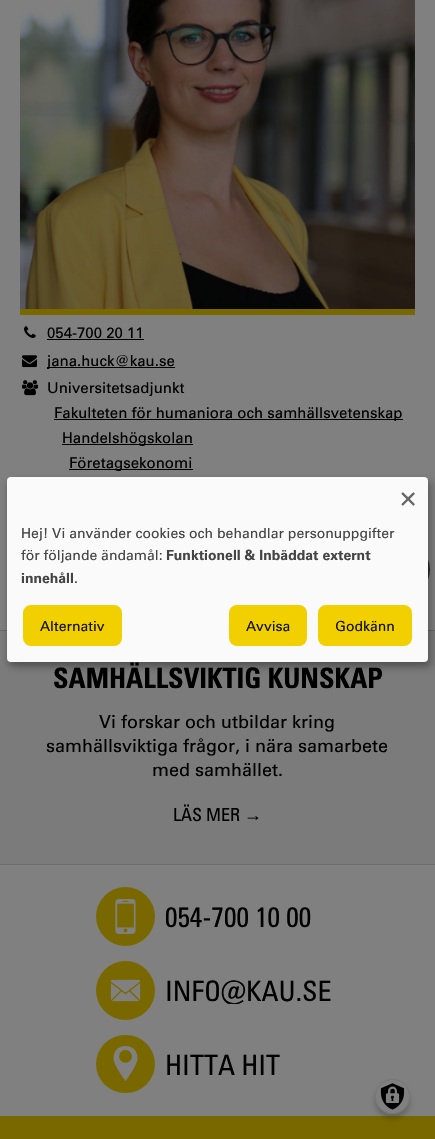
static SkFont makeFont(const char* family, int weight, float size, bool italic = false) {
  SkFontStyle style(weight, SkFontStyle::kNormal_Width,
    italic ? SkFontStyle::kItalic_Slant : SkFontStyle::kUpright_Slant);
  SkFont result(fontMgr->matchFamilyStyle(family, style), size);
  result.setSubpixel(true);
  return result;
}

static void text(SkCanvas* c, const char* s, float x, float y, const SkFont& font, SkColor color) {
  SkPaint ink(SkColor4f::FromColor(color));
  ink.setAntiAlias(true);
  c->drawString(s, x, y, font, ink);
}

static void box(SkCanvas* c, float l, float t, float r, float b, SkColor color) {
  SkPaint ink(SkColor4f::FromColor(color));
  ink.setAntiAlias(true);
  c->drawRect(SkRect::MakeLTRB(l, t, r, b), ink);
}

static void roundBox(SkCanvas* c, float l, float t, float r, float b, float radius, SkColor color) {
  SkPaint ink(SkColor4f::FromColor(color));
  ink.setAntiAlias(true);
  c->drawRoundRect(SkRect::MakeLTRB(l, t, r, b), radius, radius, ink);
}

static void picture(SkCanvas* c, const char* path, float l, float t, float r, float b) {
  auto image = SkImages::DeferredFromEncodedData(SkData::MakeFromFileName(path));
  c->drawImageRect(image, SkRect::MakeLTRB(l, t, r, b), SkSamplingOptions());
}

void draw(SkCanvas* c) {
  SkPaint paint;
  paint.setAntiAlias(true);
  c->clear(0xff808080);
  box(c, 20, 309, 415, 315, 0xff796800);
  picture(c, "img_01.png", 20, 0, 415, 309);
  picture(c, "img_02.png", 24, 326, 36, 338);
  SkFont face1 = makeFont("Univers", 400, 15);
  text(c, "054-700 20 11", 47, 338, face1, 0xff000000);
  box(c, 47, 339, 144, 340, 0xff000000);
  picture(c, "img_03.png", 22, 355, 37, 368);
  box(c, 47, 367, 175, 368, 0xff000000);
  text(c, "jana.huck@kau.se", 47, 366, face1, 0xff000000);
  picture(c, "img_04.png", 22, 380, 39, 396);
  text(c, "Universitetsadjunkt", 47, 393, face1, 0xff000000);
  box(c, 54, 419, 403, 420, 0xff000000);
  text(c, "Fakulteten för humaniora och samhällsvetenskap", 54, 418, face1, 0xff000000);
  box(c, 62, 444, 193, 445, 0xff000000);
  text(c, "Handelshögskolan", 62, 443, face1, 0xff000000);
  box(c, 69, 469, 193, 470, 0xff000000);
  text(c, "Företagsekonomi", 69, 468, face1, 0xff000000);
  paint.setColor(0xff2e2e2e);
  c->drawCircle(402.5f, 569.5f, 27.5f, paint);
  box(c, 0, 631, 435, 864, 0xff7b7b7b);
  box(c, 0, 630, 435, 631, 0xff696969);
  SkFont face2 = makeFont("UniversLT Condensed", 700, 28);
  text(c, "SAMHÄLLSVIKTIG KUNSKAP", 53, 688, face2, 0xff000000);
  SkFont face3 = makeFont("Univers", 400, 18);
  text(c, "Vi forskar och utbildar kring", 99, 728, face3, 0xff000000);
  text(c, "samhällsviktiga frågor, i nära samarbete", 46, 752, face3, 0xff000000);
  text(c, "med samhället.", 152, 776, face3, 0xff000000);
  SkFont face4 = makeFont("UniversLT Condensed", 400, 18);
  text(c, "LÄS MER", 173, 821, face4, 0xff000000);
  SkFont face5 = makeFont("Liberation Sans", 400, 18);
  text(c, "→", 244, 821, face5, 0xff000000);
  box(c, 0, 864, 435, 865, 0xff6d6d6d);
  paint.setColor(0xff796800);
  c->drawCircle(125.5f, 916.5f, 29.5f, paint);
  picture(c, "img_05.png", 115, 899, 136, 934);
  SkFont face6 = makeFont("UniversLT Condensed", 400, 28);
  text(c, "054-700 10 00", 165, 927, face6, 0xff000000);
  c->drawCircle(125.5f, 990.5f, 29.5f, paint);
  picture(c, "img_06.png", 110, 979, 141, 1002);
  c->save();
  c->clipRect(SkRect::MakeLTRB(165, 976, 331, 1004));
  text(c, "INFO@KAU.SE", 165, 1001, face6, 0xff000000);
  c->restore();
  roundBox(c, 96, 1035, 155, 1093, 29, 0xff796800);
  picture(c, "img_07.png", 113, 1046, 138, 1081);
  text(c, "HITTA HIT", 165, 1075, face6, 0xff000000);
  box(c, 0, 1116, 435, 1139, 0xff796800);
  paint.setColor(0x30000000);
  paint.setMaskFilter(SkMaskFilter::MakeBlur(kNormal_SkBlurStyle, 5));
  c->drawRoundRect(SkRect::MakeLTRB(12, 482, 433, 667), 4, 4, paint);
  paint.setMaskFilter(nullptr);
  paint.setColor(0x33000000);
  paint.setMaskFilter(SkMaskFilter::MakeBlur(kNormal_SkBlurStyle, 3));
  c->drawRoundRect(SkRect::MakeLTRB(7, 481, 428, 666), 4, 4, paint);
  paint.setMaskFilter(nullptr);
  roundBox(c, 7, 477, 428, 662, 4, 0xfffafafa);
  SkFont face7 = makeFont("Univers", 400, 28);
  text(c, "×", 400, 506, face7, 0xff666666);
  SkFont face8 = makeFont("Univers", 400, 14);
  text(c, "Hej! Vi använder cookies och behandlar personuppgifter", 21, 538, face8, 0xff444444);
  text(c, "för följande ändamål:", 21, 560, face8, 0xff444444);
  SkFont face9 = makeFont("Univers", 700, 14);
  text(c, "Funktionell & Inbäddat externt", 166, 560, face9, 0xff444444);
  text(c, "innehåll", 21, 583, face9, 0xff444444);
  text(c, ".", 74, 583, face8, 0xff444444);
  paint.setColor(0xfff2d000);
  c->drawRoundRect(SkRect::MakeLTRB(22, 604, 123, 647), 9, 9, paint);
  paint.setStyle(SkPaint::kStroke_Style);
  paint.setStrokeWidth(2);
  paint.setColor(0xfffafafa);
  c->drawRoundRect(SkRect::MakeLTRB(22, 604, 123, 647), 9, 9, paint);
  text(c, "Alternativ", 40, 631, face8, 0xff111111);
  paint.setStyle(SkPaint::kFill_Style);
  paint.setColor(0xfff2d000);
  c->drawRoundRect(SkRect::MakeLTRB(228, 604, 308, 647), 9, 9, paint);
  paint.setStyle(SkPaint::kStroke_Style);
  paint.setColor(0xfffafafa);
  c->drawRoundRect(SkRect::MakeLTRB(228, 604, 308, 647), 9, 9, paint);
  text(c, "Avvisa", 246, 631, face8, 0xff111111);
  paint.setStyle(SkPaint::kFill_Style);
  paint.setColor(0xfff2d000);
  c->drawRoundRect(SkRect::MakeLTRB(317, 604, 413, 647), 9, 9, paint);
  paint.setStyle(SkPaint::kStroke_Style);
  paint.setColor(0xfffafafa);
  c->drawRoundRect(SkRect::MakeLTRB(317, 604, 413, 647), 9, 9, paint);
  text(c, "Godkänn", 335, 631, face8, 0xff111111);
  paint.setStyle(SkPaint::kFill_Style);
  paint.setColor(0x33000000);
  paint.setMaskFilter(SkMaskFilter::MakeBlur(kNormal_SkBlurStyle, 2.5f));
  c->drawRoundRect(SkRect::MakeLTRB(375, 1084, 410, 1119), 17.5f, 17.5f, paint);
  paint.setMaskFilter(nullptr);
  paint.setColor(0xff808080);
  c->drawCircle(392.5f, 1096.5f, 17.5f, paint);
  picture(c, "img_08.png", 380, 1083, 405, 1110);
  paint.setStyle(SkPaint::kStroke_Style);
  paint.setStrokeWidth(1);
  paint.setColor(0xff757575);
  c->drawCircle(392.5f, 1096.5f, 17, paint);
}
